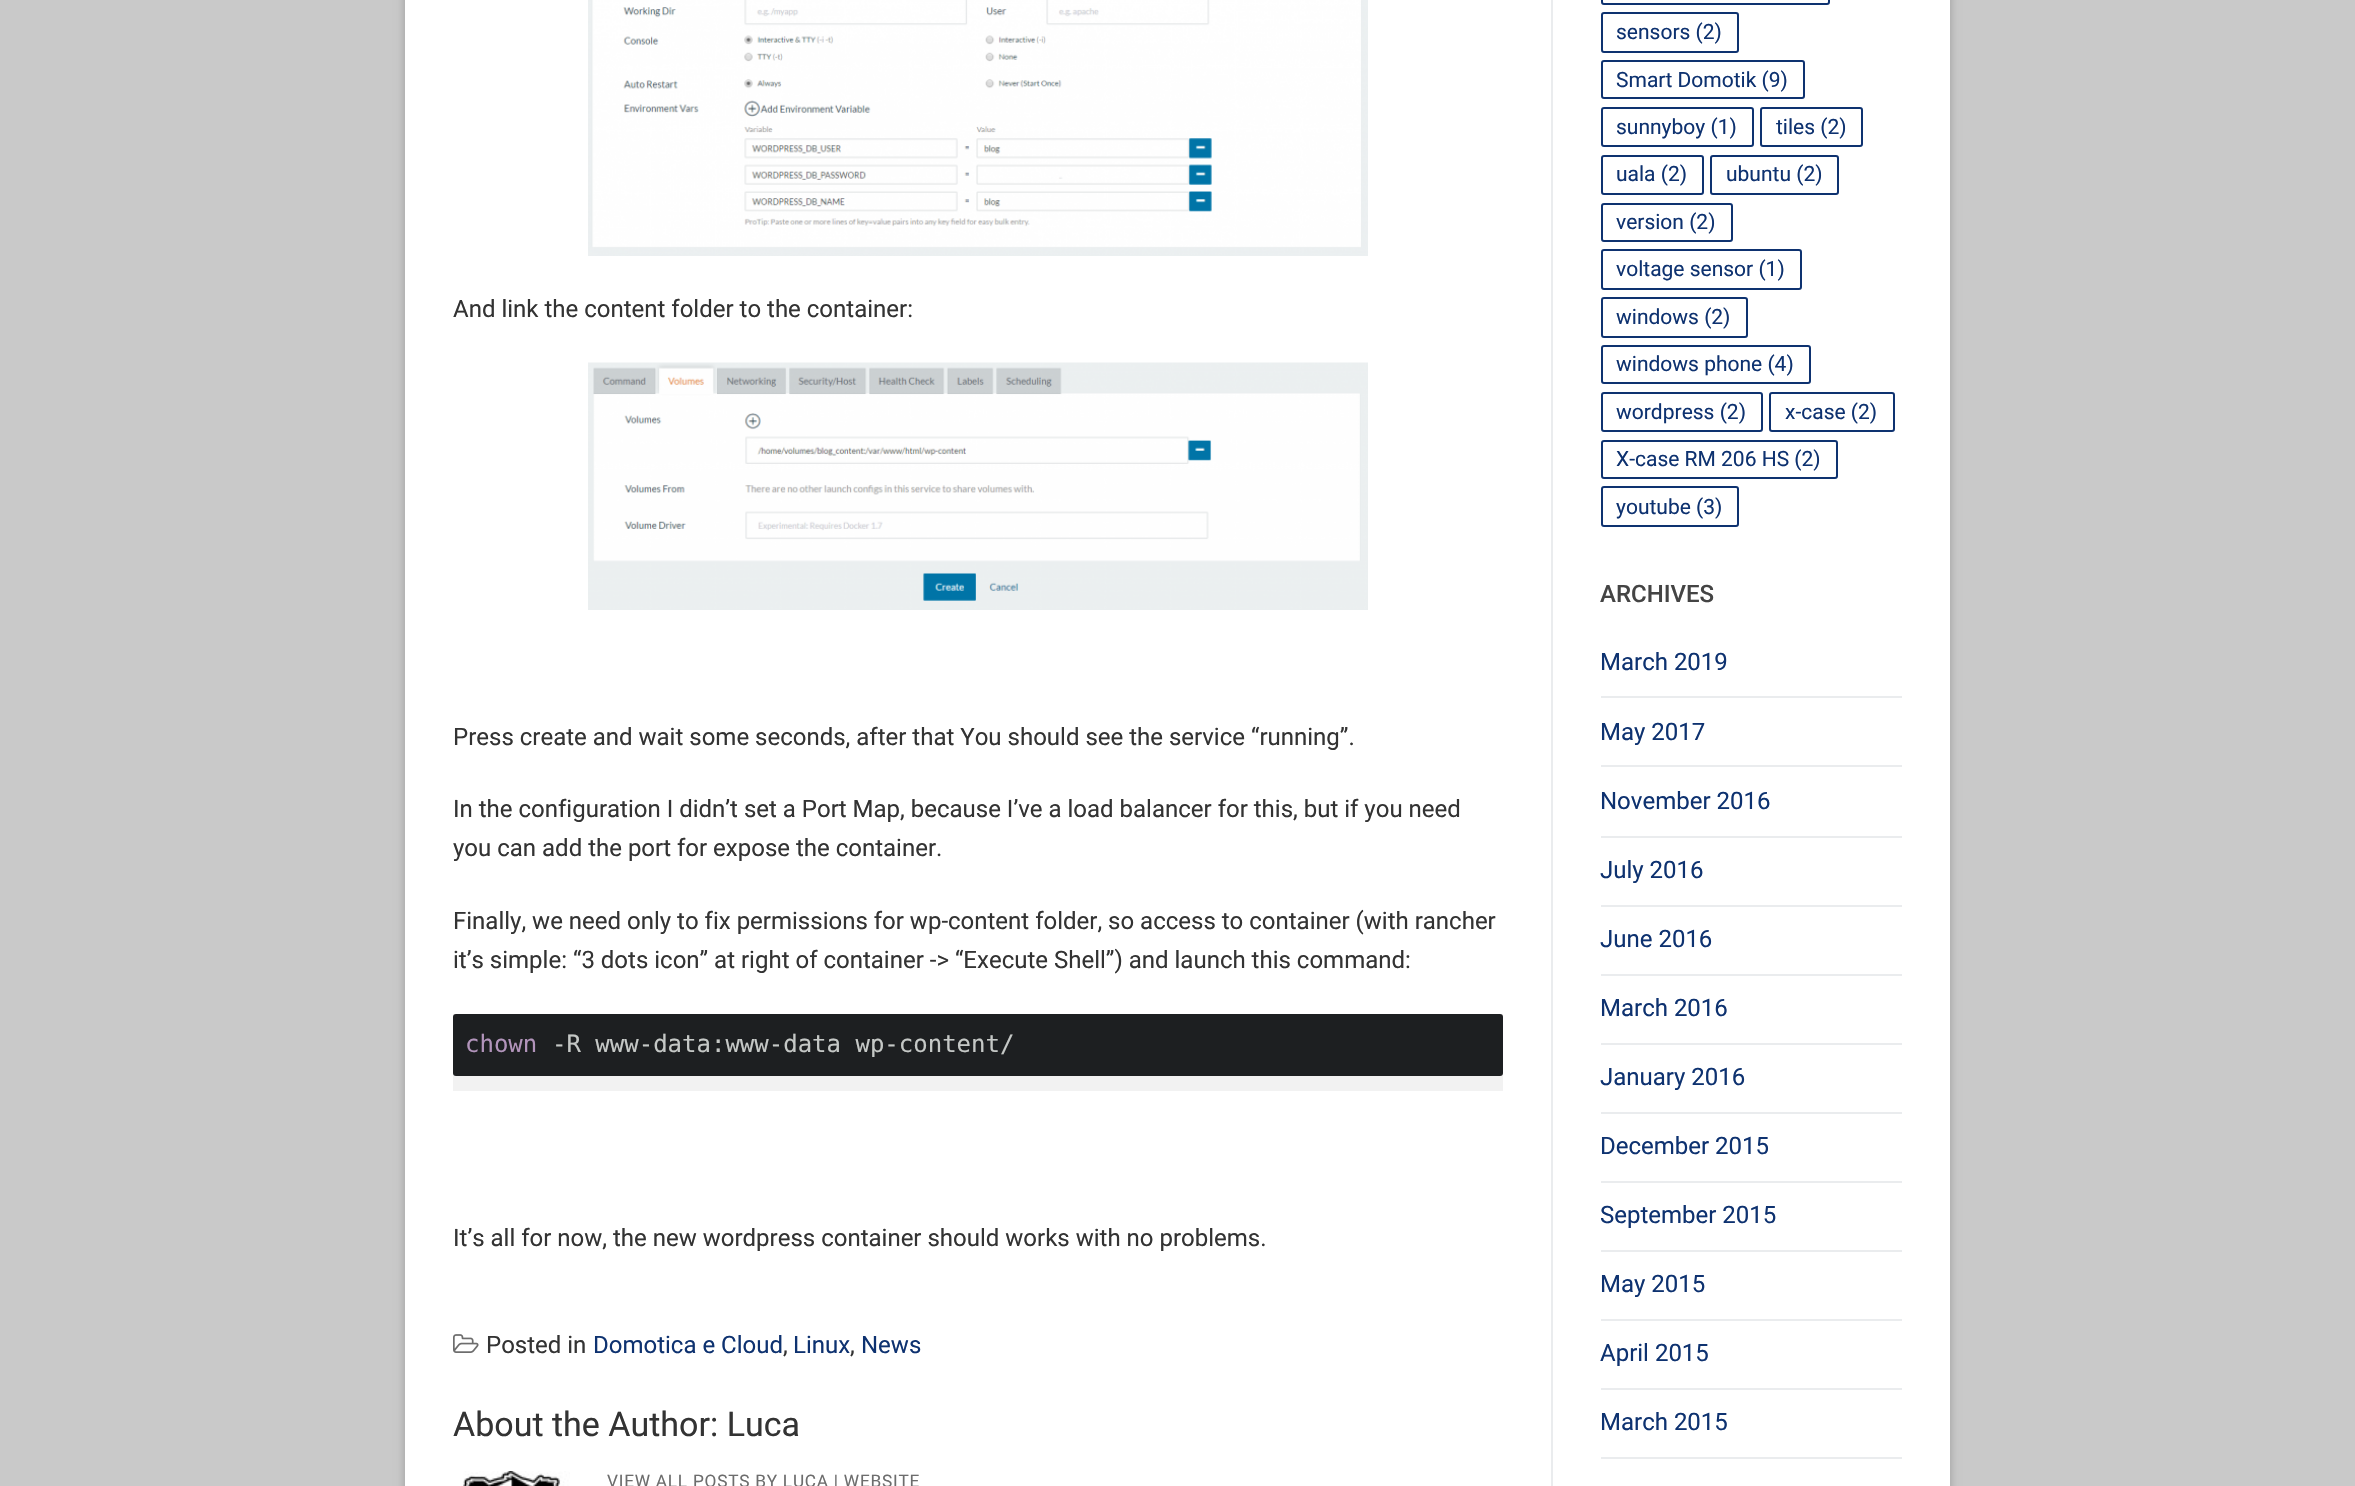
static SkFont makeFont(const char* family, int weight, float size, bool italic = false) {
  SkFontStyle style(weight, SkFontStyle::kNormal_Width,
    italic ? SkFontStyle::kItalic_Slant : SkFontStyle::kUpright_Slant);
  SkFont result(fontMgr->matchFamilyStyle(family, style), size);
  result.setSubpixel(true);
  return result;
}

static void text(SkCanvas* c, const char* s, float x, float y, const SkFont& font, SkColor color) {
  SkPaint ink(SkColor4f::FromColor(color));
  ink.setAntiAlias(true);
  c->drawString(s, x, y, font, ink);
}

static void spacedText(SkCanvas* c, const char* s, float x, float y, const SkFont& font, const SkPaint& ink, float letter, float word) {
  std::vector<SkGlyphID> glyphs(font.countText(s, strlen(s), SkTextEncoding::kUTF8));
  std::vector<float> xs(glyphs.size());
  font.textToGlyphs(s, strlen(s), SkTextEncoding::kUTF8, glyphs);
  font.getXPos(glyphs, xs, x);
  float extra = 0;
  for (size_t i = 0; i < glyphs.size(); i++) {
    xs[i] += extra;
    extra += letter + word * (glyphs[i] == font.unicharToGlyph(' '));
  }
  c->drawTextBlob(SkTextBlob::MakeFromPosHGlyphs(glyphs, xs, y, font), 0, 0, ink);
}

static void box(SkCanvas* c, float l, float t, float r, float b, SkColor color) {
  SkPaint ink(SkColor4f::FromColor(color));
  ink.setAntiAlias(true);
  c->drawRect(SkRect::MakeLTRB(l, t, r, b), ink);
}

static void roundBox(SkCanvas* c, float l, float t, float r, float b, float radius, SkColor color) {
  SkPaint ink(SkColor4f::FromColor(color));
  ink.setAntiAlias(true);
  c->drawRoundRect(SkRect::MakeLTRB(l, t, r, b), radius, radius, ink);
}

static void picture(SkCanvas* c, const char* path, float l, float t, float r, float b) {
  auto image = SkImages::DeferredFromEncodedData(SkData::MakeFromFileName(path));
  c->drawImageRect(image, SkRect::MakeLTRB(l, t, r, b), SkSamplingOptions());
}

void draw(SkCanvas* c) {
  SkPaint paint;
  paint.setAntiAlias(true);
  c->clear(0xffc9c9c9);
  paint.setColor(0x3b000000);
  paint.setMaskFilter(SkMaskFilter::MakeBlur(kNormal_SkBlurStyle, 4.5f));
  c->drawRect(SkRect::MakeLTRB(405, -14, 1950, 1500), paint);
  paint.setMaskFilter(nullptr);
  box(c, 405, 0, 1950, 1486, 0xffffffff);
  box(c, 1551, 0, 1553, 1486, 0xffeaecee);
  picture(c, "img_01.png", 588, 0, 1368, 256);
  SkFont face1 = makeFont("Roboto", 400, 24);
  text(c, "And link the content folder to the container:", 453, 317, face1, 0xff333333);
  picture(c, "img_02.png", 588, 362, 1368, 610);
  text(c, "Press create and wait some seconds, after that You should see the service “running”.", 453, 745, face1, 0xff333333);
  text(c, "In the configuration I didn’t set a Port Map, because I’ve a load balancer for this, but if you need", 453, 817, face1, 0xff333333);
  text(c, "you can add the port for expose the container.", 453, 856, face1, 0xff333333);
  text(c, "Finally, we need only to fix permissions for wp-content folder, so access to container (with rancher", 453, 929, face1, 0xff333333);
  text(c, "it’s simple: “3 dots icon” at right of container -> “Execute Shell”) and launch this command:", 453, 968, face1, 0xff333333);
  box(c, 453, 1014, 1503, 1091, 0xfff2f2f2);
  roundBox(c, 453, 1014, 1503, 1076, 3, 0xff1d1f21);
  SkFont face2 = makeFont("DejaVu Sans Mono", 400, 24);
  text(c, "chown", 465, 1052, face2, 0xffb294bb);
  text(c, "-R www-data:www-data wp-content/", 552, 1052, face2, 0xffc5c8c6);
  text(c, "It’s all for now, the new wordpress container should works with no problems.", 453, 1246, face1, 0xff333333);
  picture(c, "img_03.png", 453, 1334, 479, 1353);
  text(c, "Posted in", 486, 1353, face1, 0xff333333);
  text(c, "Domotica e Cloud", 593, 1353, face1, 0xff0e3270);
  text(c, ",", 783, 1353, face1, 0xff333333);
  text(c, "Linux", 793, 1353, face1, 0xff0e3270);
  text(c, ",", 850, 1353, face1, 0xff333333);
  text(c, "News", 861, 1353, face1, 0xff0e3270);
  SkFont face3 = makeFont("Roboto", 400, 34);
  text(c, "About the Author: Luca", 453, 1436, face3, 0xff333333);
  picture(c, "img_04.png", 463, 1471, 570, 1486);
  SkFont face4 = makeFont("Roboto", 400, 17.25f);
  paint.setColor(0xff6d6d6d);
  spacedText(c, "VIEW ALL POSTS BY LUCA | WEBSITE", 607, 1487, face4, paint, 0.75f, 0);
  paint.setStyle(SkPaint::kStroke_Style);
  paint.setStrokeWidth(2);
  paint.setColor(0xff0e3270);
  c->drawRoundRect(SkRect::MakeLTRB(1602, -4, 1829, 4), 2, 2, paint);
  c->drawRoundRect(SkRect::MakeLTRB(1602, 13, 1738, 52), 2, 2, paint);
  SkFont face5 = makeFont("Roboto", 400, 21);
  text(c, "sensors (2)", 1616, 39, face5, 0xff0e3270);
  c->drawRoundRect(SkRect::MakeLTRB(1602, 61, 1804, 98), 2, 2, paint);
  text(c, "Smart Domotik (9)", 1616, 87, face5, 0xff0e3270);
  c->drawRoundRect(SkRect::MakeLTRB(1602, 108, 1753, 146), 2, 2, paint);
  text(c, "sunnyboy (1)", 1616, 134, face5, 0xff0e3270);
  c->drawRoundRect(SkRect::MakeLTRB(1761, 108, 1862, 146), 2, 2, paint);
  text(c, "tiles (2)", 1776, 134, face5, 0xff0e3270);
  c->drawRoundRect(SkRect::MakeLTRB(1602, 156, 1703, 194), 2, 2, paint);
  text(c, "uala (2)", 1616, 181, face5, 0xff0e3270);
  c->drawRoundRect(SkRect::MakeLTRB(1711, 156, 1838, 194), 2, 2, paint);
  text(c, "ubuntu (2)", 1726, 181, face5, 0xff0e3270);
  c->drawRoundRect(SkRect::MakeLTRB(1602, 204, 1732, 241), 2, 2, paint);
  text(c, "version (2)", 1616, 229, face5, 0xff0e3270);
  c->drawRoundRect(SkRect::MakeLTRB(1602, 250, 1801, 289), 2, 2, paint);
  text(c, "voltage sensor (1)", 1616, 276, face5, 0xff0e3270);
  c->drawRoundRect(SkRect::MakeLTRB(1602, 298, 1747, 337), 2, 2, paint);
  text(c, "windows (2)", 1616, 324, face5, 0xff0e3270);
  c->drawRoundRect(SkRect::MakeLTRB(1602, 346, 1810, 383), 2, 2, paint);
  text(c, "windows phone (4)", 1616, 371, face5, 0xff0e3270);
  c->drawRoundRect(SkRect::MakeLTRB(1602, 393, 1762, 431), 2, 2, paint);
  text(c, "wordpress (2)", 1616, 419, face5, 0xff0e3270);
  c->drawRoundRect(SkRect::MakeLTRB(1770, 393, 1894, 431), 2, 2, paint);
  text(c, "x-case (2)", 1785, 419, face5, 0xff0e3270);
  c->drawRoundRect(SkRect::MakeLTRB(1602, 441, 1837, 478), 2, 2, paint);
  text(c, "X-case RM 206 HS (2)", 1616, 466, face5, 0xff0e3270);
  c->drawRoundRect(SkRect::MakeLTRB(1602, 487, 1738, 526), 2, 2, paint);
  text(c, "youtube (3)", 1616, 514, face5, 0xff0e3270);
  SkFont face6 = makeFont("Roboto", 500, 24);
  text(c, "ARCHIVES", 1600, 602, face6, 0xff444444);
  box(c, 1601, 696, 1902, 698, 0xffeaecee);
  text(c, "March 2019", 1600, 670, face1, 0xff0e3270);
  box(c, 1601, 765, 1902, 767, 0xffeaecee);
  text(c, "May 2017", 1600, 740, face1, 0xff0e3270);
  box(c, 1601, 836, 1902, 838, 0xffeaecee);
  text(c, "November 2016", 1600, 809, face1, 0xff0e3270);
  box(c, 1601, 905, 1902, 907, 0xffeaecee);
  text(c, "July 2016", 1600, 878, face1, 0xff0e3270);
  box(c, 1601, 974, 1902, 976, 0xffeaecee);
  text(c, "June 2016", 1600, 947, face1, 0xff0e3270);
  box(c, 1601, 1043, 1902, 1045, 0xffeaecee);
  text(c, "March 2016", 1600, 1016, face1, 0xff0e3270);
  box(c, 1601, 1112, 1902, 1114, 0xffeaecee);
  text(c, "January 2016", 1600, 1085, face1, 0xff0e3270);
  box(c, 1601, 1181, 1902, 1183, 0xffeaecee);
  text(c, "December 2015", 1600, 1154, face1, 0xff0e3270);
  box(c, 1601, 1250, 1902, 1252, 0xffeaecee);
  text(c, "September 2015", 1600, 1223, face1, 0xff0e3270);
  box(c, 1601, 1319, 1902, 1321, 0xffeaecee);
  text(c, "May 2015", 1600, 1292, face1, 0xff0e3270);
  box(c, 1601, 1388, 1902, 1390, 0xffeaecee);
  text(c, "April 2015", 1600, 1361, face1, 0xff0e3270);
  box(c, 1601, 1457, 1902, 1459, 0xffeaecee);
  text(c, "March 2015", 1600, 1430, face1, 0xff0e3270);
}
